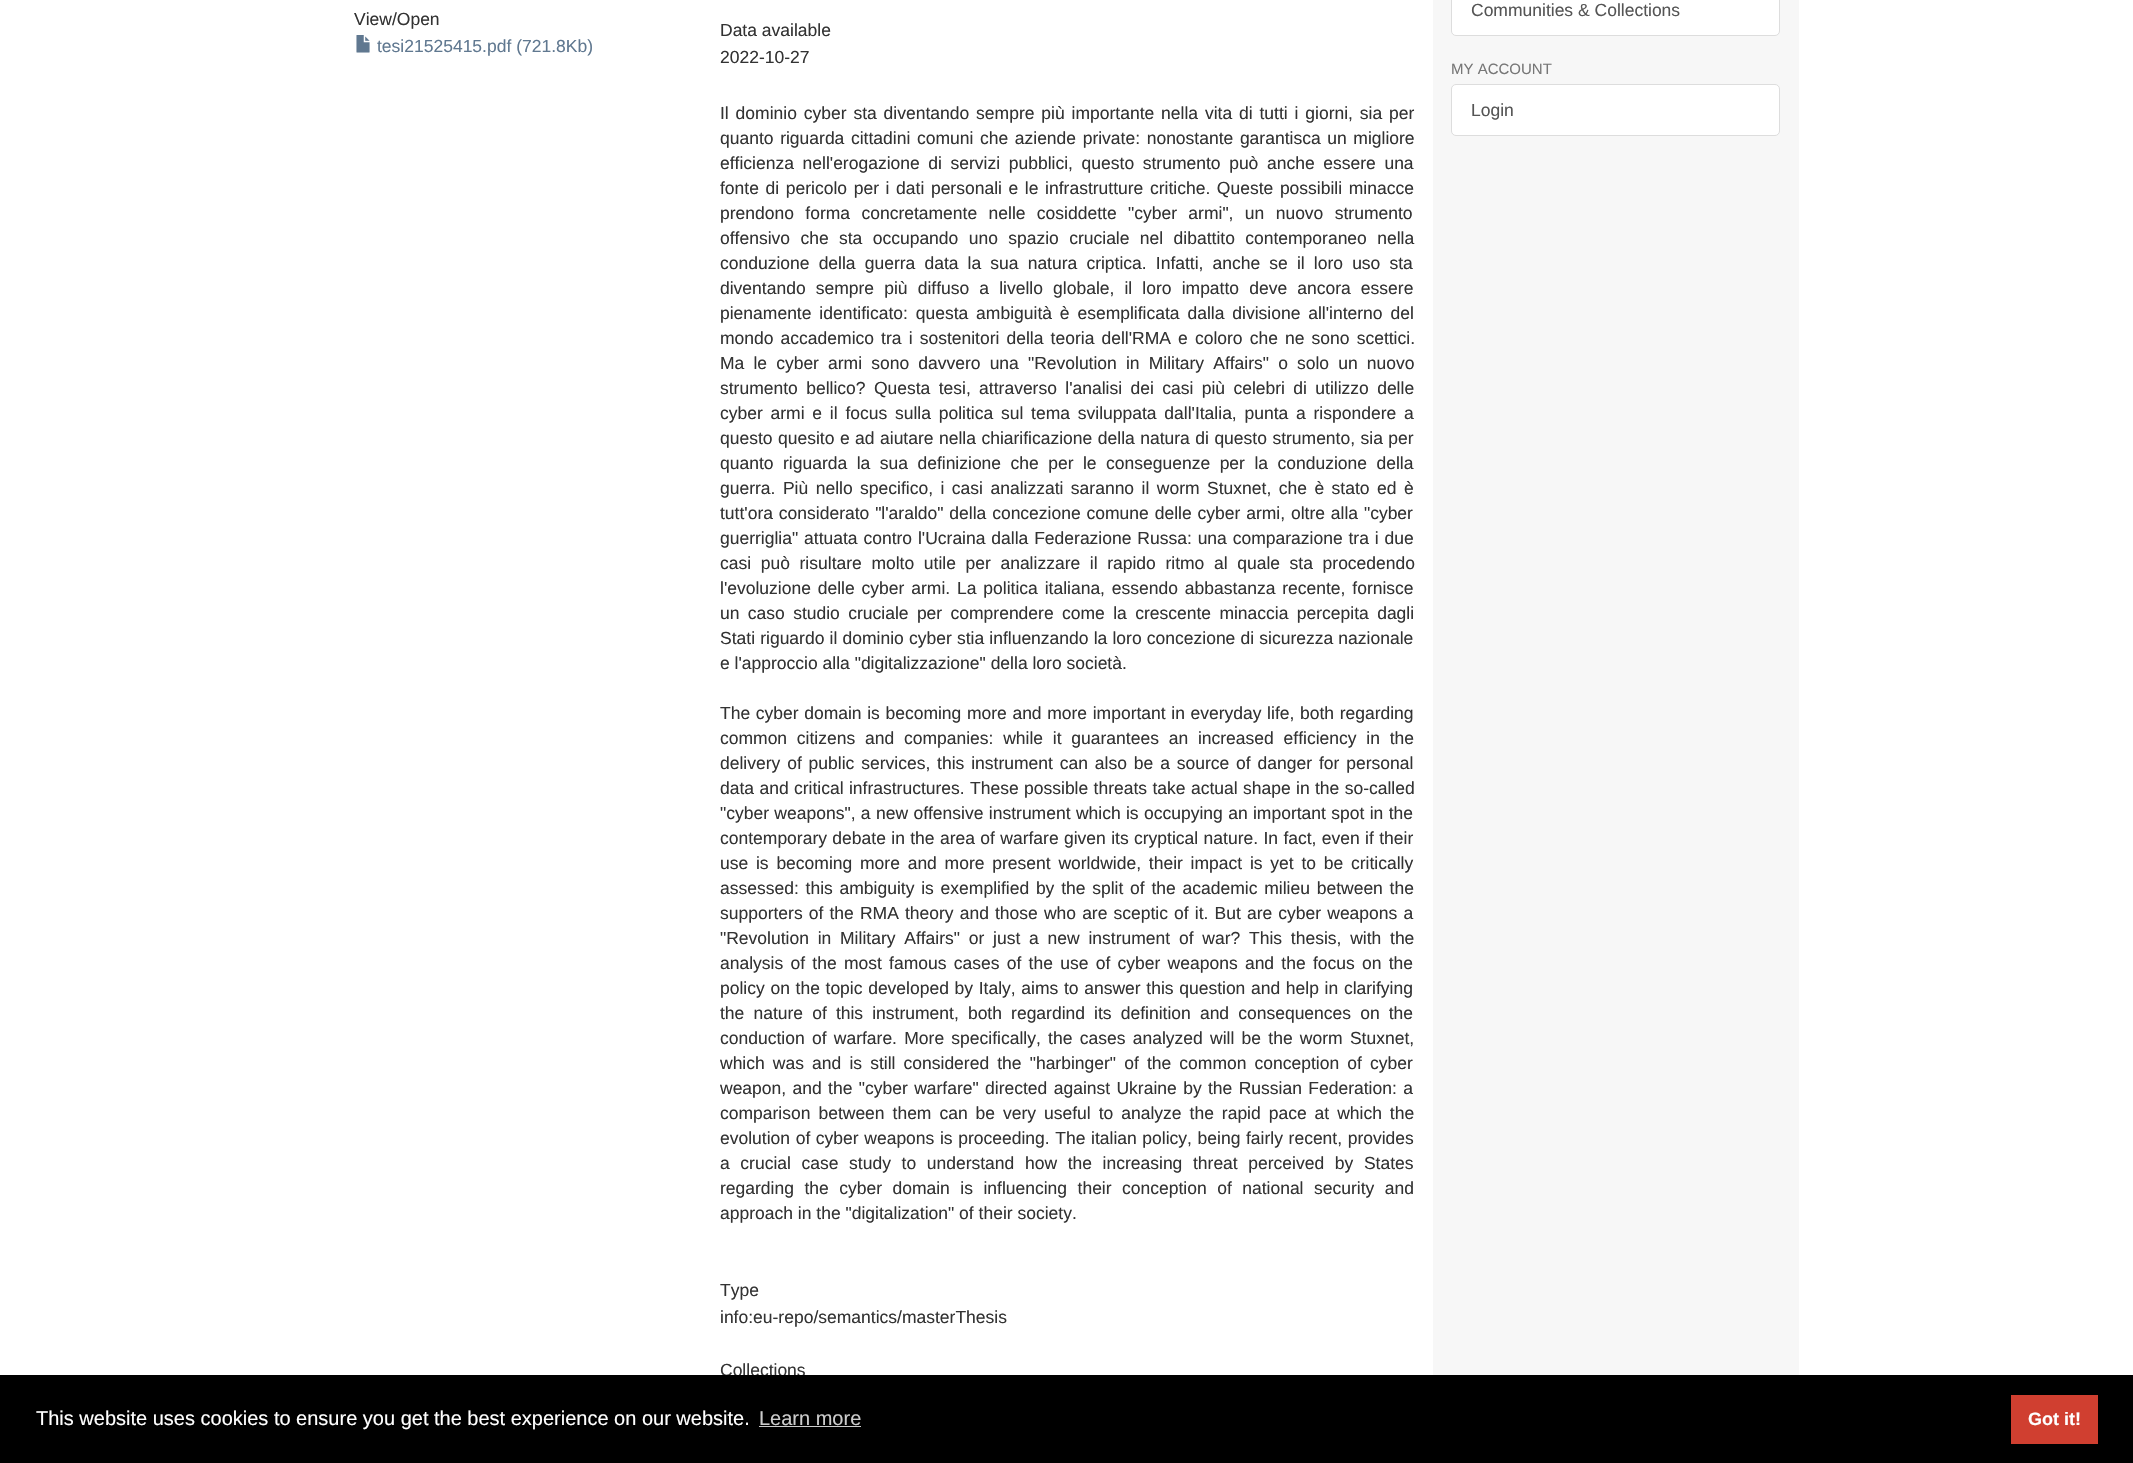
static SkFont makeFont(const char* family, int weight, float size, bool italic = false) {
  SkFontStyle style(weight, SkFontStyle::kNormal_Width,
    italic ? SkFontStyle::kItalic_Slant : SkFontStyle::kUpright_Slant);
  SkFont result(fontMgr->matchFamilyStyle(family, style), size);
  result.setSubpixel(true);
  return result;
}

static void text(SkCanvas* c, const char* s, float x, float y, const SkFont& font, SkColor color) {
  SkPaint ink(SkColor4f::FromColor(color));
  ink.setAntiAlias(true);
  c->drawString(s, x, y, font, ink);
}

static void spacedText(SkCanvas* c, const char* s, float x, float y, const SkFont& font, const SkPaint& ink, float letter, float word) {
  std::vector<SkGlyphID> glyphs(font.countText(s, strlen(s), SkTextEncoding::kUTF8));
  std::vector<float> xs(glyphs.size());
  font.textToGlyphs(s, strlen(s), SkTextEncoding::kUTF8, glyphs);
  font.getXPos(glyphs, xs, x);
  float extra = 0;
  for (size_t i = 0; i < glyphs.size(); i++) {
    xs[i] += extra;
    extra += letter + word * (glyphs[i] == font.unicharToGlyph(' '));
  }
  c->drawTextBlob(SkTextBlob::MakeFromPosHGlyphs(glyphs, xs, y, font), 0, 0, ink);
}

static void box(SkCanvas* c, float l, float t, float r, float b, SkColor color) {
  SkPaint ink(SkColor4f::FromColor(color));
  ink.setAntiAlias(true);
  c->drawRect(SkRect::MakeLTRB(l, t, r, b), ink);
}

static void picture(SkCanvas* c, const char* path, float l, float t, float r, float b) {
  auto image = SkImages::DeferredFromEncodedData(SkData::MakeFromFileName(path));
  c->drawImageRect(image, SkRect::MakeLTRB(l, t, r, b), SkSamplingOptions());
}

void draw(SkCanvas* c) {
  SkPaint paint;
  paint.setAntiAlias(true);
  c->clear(0xffffffff);
  box(c, 1433, 0, 1799, 1375, 0xfff7f7f7);
  SkFont face1 = makeFont("Liberation Sans", 400, 17.5f);
  text(c, "View/Open", 354, 25, face1, 0xff333333);
  picture(c, "img_01.png", 356, 35, 370, 53);
  text(c, "tesi21525415.pdf (721.8Kb)", 377, 52, face1, 0xff607890);
  text(c, "Data available", 720, 36, face1, 0xff333333);
  text(c, "2022-10-27", 720, 63, face1, 0xff333333);
  paint.setColor(0xff333333);
  spacedText(c, "Il dominio cyber sta diventando sempre più importante nella vita di tutti i giorni, sia per", 720, 119, face1, paint, 0, 2);
  spacedText(c, "quanto riguarda cittadini comuni che aziende private: nonostante garantisca un migliore", 720, 144, face1, paint, 0, 1.75f);
  spacedText(c, "efficienza nell'erogazione di servizi pubblici, questo strumento può anche essere una", 720, 169, face1, paint, 0, 3.75f);
  spacedText(c, "fonte di pericolo per i dati personali e le infrastrutture critiche. Queste possibili minacce", 720, 194, face1, paint, 0, 1.75f);
  spacedText(c, "prendono forma concretamente nelle cosiddette \"cyber armi\", un nuovo strumento", 720, 219, face1, paint, 0, 6.5f);
  spacedText(c, "offensivo che sta occupando uno spazio cruciale nel dibattito contemporaneo nella", 720, 244, face1, paint, 0, 5.5f);
  spacedText(c, "conduzione della guerra data la sua natura criptica. Infatti, anche se il loro uso sta", 720, 269, face1, paint, 0, 4.25f);
  spacedText(c, "diventando sempre più diffuso a livello globale, il loro impatto deve ancora essere", 720, 294, face1, paint, 0, 5.25f);
  spacedText(c, "pienamente identificato: questa ambiguità è esemplificata dalla divisione all'interno del", 720, 319, face1, paint, 0, 3);
  spacedText(c, "mondo accademico tra i sostenitori della teoria dell'RMA e coloro che ne sono scettici.", 720, 344, face1, paint, 0, 2.25f);
  spacedText(c, "Ma le cyber armi sono davvero una \"Revolution in Military Affairs\" o solo un nuovo", 720, 369, face1, paint, 0, 4.25f);
  spacedText(c, "strumento bellico? Questa tesi, attraverso l'analisi dei casi più celebri di utilizzo delle", 720, 394, face1, paint, 0, 3.5f);
  spacedText(c, "cyber armi e il focus sulla politica sul tema sviluppata dall'Italia, punta a rispondere a", 720, 419, face1, paint, 0, 2.9f);
  spacedText(c, "questo quesito e ad aiutare nella chiarificazione della natura di questo strumento, sia per", 720, 444, face1, paint, 0, 0.6f);
  spacedText(c, "quanto riguarda la sua definizione che per le conseguenze per la conduzione della", 720, 469, face1, paint, 0, 4.6f);
  spacedText(c, "guerra. Più nello specifico, i casi analizzati saranno il worm Stuxnet, che è stato ed è", 720, 494, face1, paint, 0, 2.6f);
  spacedText(c, "tutt'ora considerato \"l'araldo\" della concezione comune delle cyber armi, oltre alla \"cyber", 720, 519, face1, paint, 0, 1);
  spacedText(c, "guerriglia\" attuata contro l'Ucraina dalla Federazione Russa: una comparazione tra i due", 720, 544, face1, paint, 0, 1);
  spacedText(c, "casi può risultare molto utile per analizzare il rapido ritmo al quale sta procedendo", 720, 569, face1, paint, 0, 4.75f);
  spacedText(c, "l'evoluzione delle cyber armi. La politica italiana, essendo abbastanza recente, fornisce", 720, 594, face1, paint, 0, 2);
  spacedText(c, "un caso studio cruciale per comprendere come la crescente minaccia percepita dagli", 720, 619, face1, paint, 0, 3.5f);
  spacedText(c, "Stati riguardo il dominio cyber stia influenzando la loro concezione di sicurezza nazionale", 720, 644, face1, paint, 0, 0.3f);
  text(c, "e l'approccio alla \"digitalizzazione\" della loro società.", 720, 669, face1, 0xff333333);
  spacedText(c, "The cyber domain is becoming more and more important in everyday life, both regarding", 720, 719, face1, paint, 0, 0.75f);
  spacedText(c, "common citizens and companies: while it guarantees an increased efficiency in the", 720, 744, face1, paint, 0, 4.9f);
  spacedText(c, "delivery of public services, this instrument can also be a source of danger for personal", 720, 769, face1, paint, 0, 2);
  spacedText(c, "data and critical infrastructures. These possible threats take actual shape in the so-called", 720, 794, face1, paint, 0, 0.5f);
  spacedText(c, "\"cyber weapons\", a new offensive instrument which is occupying an important spot in the", 720, 819, face1, paint, 0, 0.5f);
  spacedText(c, "contemporary debate in the area of warfare given its cryptical nature. In fact, even if their", 720, 844, face1, paint, 0, 0.5f);
  spacedText(c, "use is becoming more and more present worldwide, their impact is yet to be critically", 720, 869, face1, paint, 0, 2.9f);
  spacedText(c, "assessed: this ambiguity is exemplified by the split of the academic milieu between the", 720, 894, face1, paint, 0, 1.9f);
  spacedText(c, "supporters of the RMA theory and those who are sceptic of it. But are cyber weapons a", 720, 919, face1, paint, 0, 1.25f);
  spacedText(c, "\"Revolution in Military Affairs\" or just a new instrument of war? This thesis, with the", 720, 944, face1, paint, 0, 3.9f);
  spacedText(c, "analysis of the most famous cases of the use of cyber weapons and the focus on the", 720, 969, face1, paint, 0, 2.4f);
  spacedText(c, "policy on the topic developed by Italy, aims to answer this question and help in clarifying", 720, 994, face1, paint, 0, 0.8f);
  spacedText(c, "the nature of this instrument, both regardind its definition and consequences on the", 720, 1019, face1, paint, 0, 4.25f);
  spacedText(c, "conduction of warfare. More specifically, the cases analyzed will be the worm Stuxnet,", 720, 1044, face1, paint, 0, 2.4f);
  spacedText(c, "which was and is still considered the \"harbinger\" of the common conception of cyber", 720, 1069, face1, paint, 0, 3.25f);
  spacedText(c, "weapon, and the \"cyber warfare\" directed against Ukraine by the Russian Federation: a", 720, 1094, face1, paint, 0, 1.5f);
  spacedText(c, "comparison between them can be very useful to analyze the rapid pace at which the", 720, 1119, face1, paint, 0, 3.1f);
  spacedText(c, "evolution of cyber weapons is proceeding. The italian policy, being fairly recent, provides", 720, 1144, face1, paint, 0, 0.75f);
  spacedText(c, "a crucial case study to understand how the increasing threat perceived by States", 720, 1169, face1, paint, 0, 5.75f);
  spacedText(c, "regarding the cyber domain is influencing their conception of national security and", 720, 1194, face1, paint, 0, 5.6f);
  text(c, "approach in the \"digitalization\" of their society.", 720, 1219, face1, 0xff333333);
  text(c, "Type", 720, 1296, face1, 0xff333333);
  text(c, "info:eu-repo/semantics/masterThesis", 720, 1323, face1, 0xff333333);
  text(c, "Collections", 720, 1376, face1, 0xff333333);
  paint.setColor(0xffffffff);
  c->drawPath(SkPathBuilder().moveTo(1451.5f, -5.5f).lineTo(1779.5f, -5.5f).lineTo(1779.5f, 31).cubicTo(1779.5f, 33.5f, 1777.5f, 35.5f, 1775, 35.5f).lineTo(1456, 35.5f).cubicTo(1453.5f, 35.5f, 1451.5f, 33.5f, 1451.5f, 31).close().detach(), paint);
  paint.setStyle(SkPaint::kStroke_Style);
  paint.setStrokeWidth(1);
  paint.setColor(0xffdddddd);
  c->drawPath(SkPathBuilder().moveTo(1451.5f, -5.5f).lineTo(1779.5f, -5.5f).lineTo(1779.5f, 31).cubicTo(1779.5f, 33.5f, 1777.5f, 35.5f, 1775, 35.5f).lineTo(1456, 35.5f).cubicTo(1453.5f, 35.5f, 1451.5f, 33.5f, 1451.5f, 31).close().detach(), paint);
  text(c, "Communities & Collections", 1471, 16, face1, 0xff555555);
  SkFont face2 = makeFont("Liberation Sans", 400, 15);
  text(c, "MY ACCOUNT", 1451, 74, face2, 0xff777777);
  paint.setStyle(SkPaint::kFill_Style);
  paint.setColor(0xffffffff);
  c->drawRoundRect(SkRect::MakeLTRB(1451.5f, 84.5f, 1779.5f, 135.5f), 4.5f, 4.5f, paint);
  paint.setStyle(SkPaint::kStroke_Style);
  paint.setColor(0xffdddddd);
  c->drawRoundRect(SkRect::MakeLTRB(1451.5f, 84.5f, 1779.5f, 135.5f), 4.5f, 4.5f, paint);
  text(c, "Login", 1471, 116, face1, 0xff555555);
  box(c, 0, 1375, 2133, 1463, 0xff000000);
  SkFont face3 = makeFont("Liberation Sans", 400, 20);
  text(c, "This website uses cookies to ensure you get the best experience on our website.", 36, 1425, face3, 0xffffffff);
  text(c, "Learn more", 759, 1425, face3, 0xffcccccc);
  box(c, 759, 1426, 861, 1427, 0xffcccccc);
  box(c, 2011, 1395, 2098, 1444, 0xffd03f30);
  SkFont face4 = makeFont("Liberation Sans", 700, 18);
  text(c, "Got it!", 2028, 1425, face4, 0xffffffff);
}
